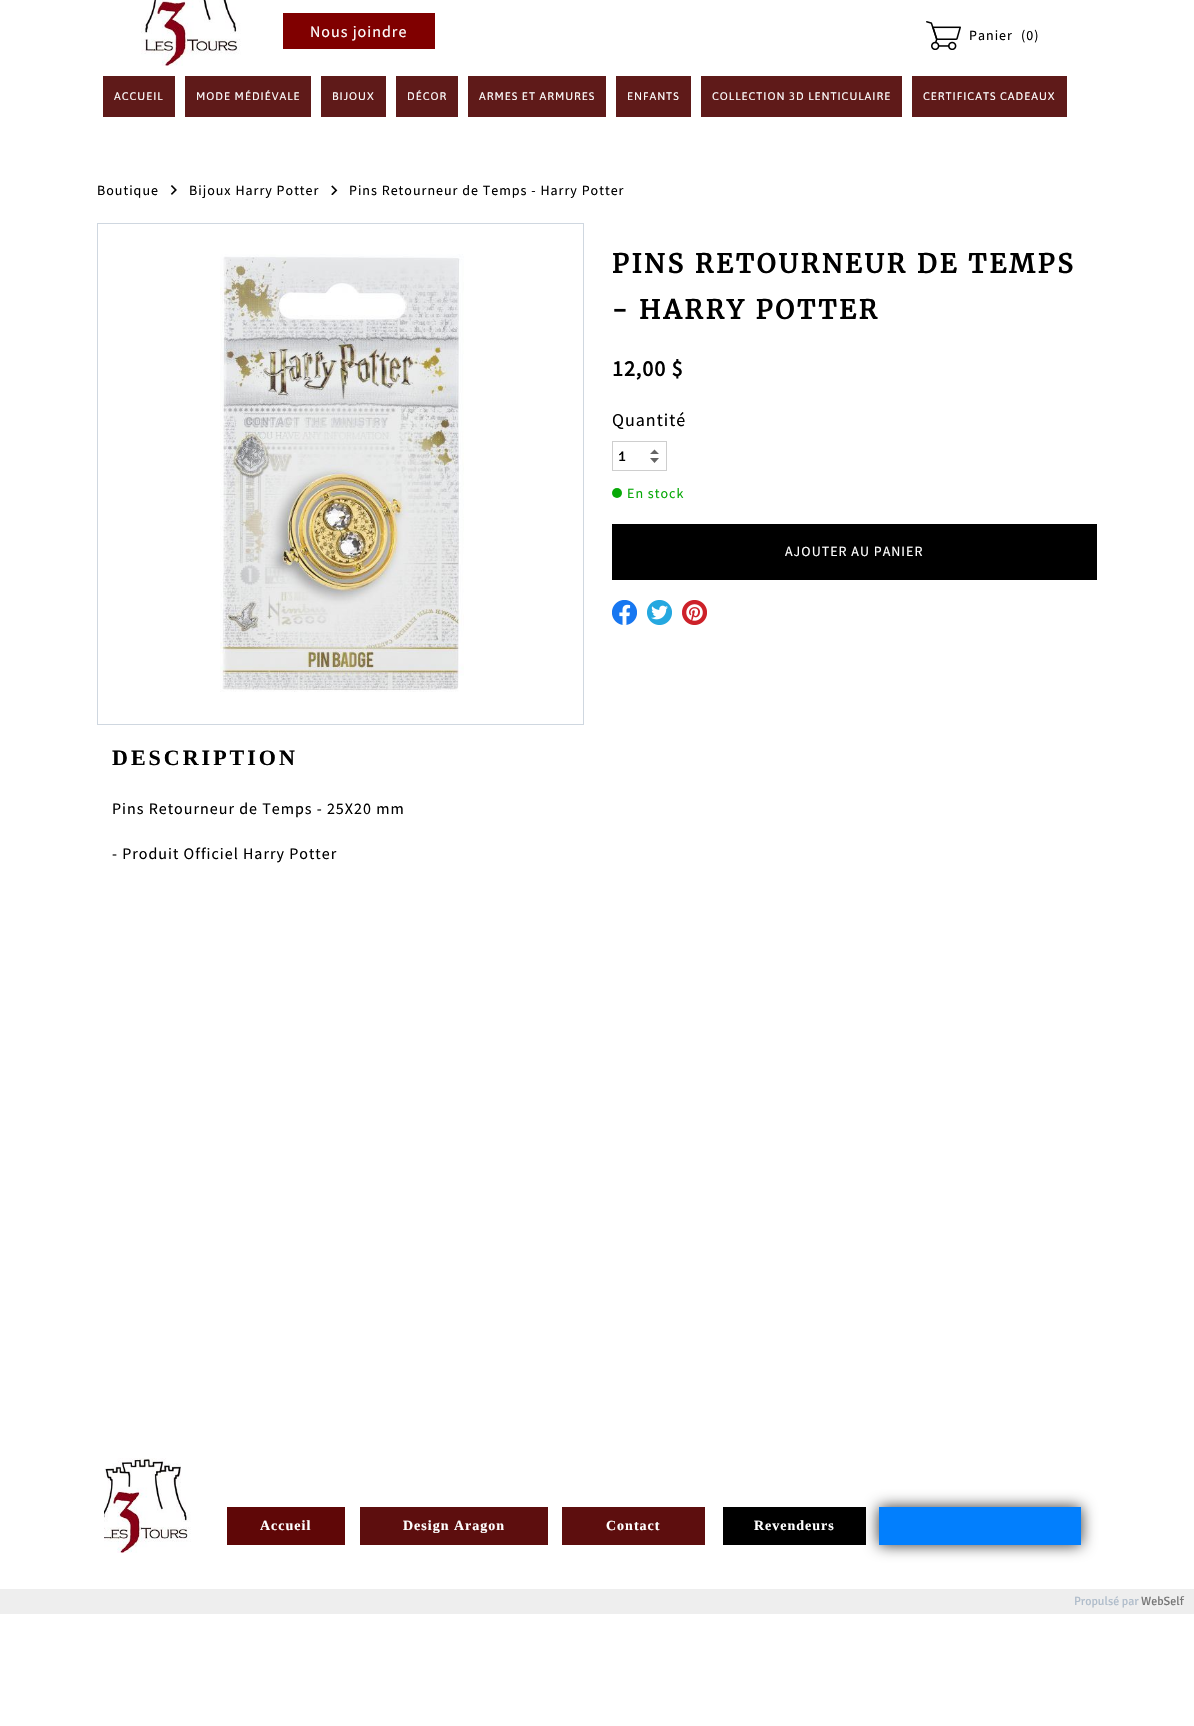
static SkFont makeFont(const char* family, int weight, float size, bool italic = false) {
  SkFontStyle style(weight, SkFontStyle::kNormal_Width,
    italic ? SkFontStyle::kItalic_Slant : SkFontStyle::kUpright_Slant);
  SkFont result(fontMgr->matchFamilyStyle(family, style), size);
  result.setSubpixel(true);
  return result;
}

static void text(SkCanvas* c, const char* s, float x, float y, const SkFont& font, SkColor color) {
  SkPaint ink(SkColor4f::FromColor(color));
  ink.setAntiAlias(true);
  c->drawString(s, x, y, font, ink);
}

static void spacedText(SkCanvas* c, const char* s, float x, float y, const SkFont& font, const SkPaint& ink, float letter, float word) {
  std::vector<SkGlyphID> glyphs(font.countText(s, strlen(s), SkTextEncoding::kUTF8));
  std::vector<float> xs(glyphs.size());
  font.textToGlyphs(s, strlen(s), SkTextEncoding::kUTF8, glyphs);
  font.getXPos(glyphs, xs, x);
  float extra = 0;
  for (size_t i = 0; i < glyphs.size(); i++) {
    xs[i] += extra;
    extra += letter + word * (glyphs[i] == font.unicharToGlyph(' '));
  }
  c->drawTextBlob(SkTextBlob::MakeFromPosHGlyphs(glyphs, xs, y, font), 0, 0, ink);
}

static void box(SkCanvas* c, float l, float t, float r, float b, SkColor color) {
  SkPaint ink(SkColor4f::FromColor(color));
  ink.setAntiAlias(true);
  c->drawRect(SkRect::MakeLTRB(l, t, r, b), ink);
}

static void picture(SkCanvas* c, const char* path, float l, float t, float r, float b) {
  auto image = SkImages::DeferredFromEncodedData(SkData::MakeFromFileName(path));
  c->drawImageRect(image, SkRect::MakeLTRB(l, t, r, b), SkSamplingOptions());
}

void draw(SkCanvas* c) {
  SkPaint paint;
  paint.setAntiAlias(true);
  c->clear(0xffffffff);
  picture(c, "img_01.png", 141, 0, 241, 66);
  box(c, 283, 13, 435, 49, 0xff800000);
  SkFont face1 = makeFont("Source Sans Pro", 400, 16);
  paint.setColor(0xffffffff);
  spacedText(c, "Nous joindre", 310, 37, face1, paint, 1, 0);
  picture(c, "img_02.png", 926, 21, 961, 50);
  SkFont face2 = makeFont("Source Sans Pro", 400, 14);
  paint.setColor(0xff000000);
  spacedText(c, "Panier", 969, 40, face2, paint, 1, 0);
  spacedText(c, "(0)", 1021, 40, face2, paint, 1, 0);
  box(c, 103, 76, 175, 117, 0xff5f1a19);
  SkFont face3 = makeFont("Asap", 400, 11);
  paint.setColor(0xffffffff);
  spacedText(c, "ACCUEIL", 114, 100, face3, paint, 1, 0);
  box(c, 185, 76, 311, 117, 0xff5f1a19);
  spacedText(c, "MODE MÉDIÉVALE", 196, 100, face3, paint, 1, 0);
  box(c, 321, 76, 386, 117, 0xff5f1a19);
  spacedText(c, "BIJOUX", 332, 100, face3, paint, 1, 0);
  box(c, 396, 76, 458, 117, 0xff5f1a19);
  spacedText(c, "DÉCOR", 407, 100, face3, paint, 1, 0);
  box(c, 468, 76, 606, 117, 0xff5f1a19);
  spacedText(c, "ARMES ET ARMURES", 479, 100, face3, paint, 1, 0);
  box(c, 616, 76, 691, 117, 0xff5f1a19);
  spacedText(c, "ENFANTS", 627, 100, face3, paint, 1, 0);
  box(c, 701, 76, 902, 117, 0xff5f1a19);
  spacedText(c, "COLLECTION 3D LENTICULAIRE", 712, 100, face3, paint, 1, 0);
  box(c, 912, 76, 1067, 117, 0xff5f1a19);
  spacedText(c, "CERTIFICATS CADEAUX", 923, 100, face3, paint, 1, 0);
  paint.setColor(0xff000000);
  spacedText(c, "Boutique", 97, 195, face2, paint, 1, 0);
  picture(c, "img_03.png", 170, 185, 177, 195);
  spacedText(c, "Bijoux Harry Potter", 189, 195, face2, paint, 1, 0);
  picture(c, "img_04.png", 331, 185, 338, 195);
  spacedText(c, "Pins Retourneur de Temps - Harry Potter", 349, 195, face2, paint, 1, 0);
  paint.setStyle(SkPaint::kStroke_Style);
  paint.setStrokeWidth(1);
  paint.setColor(0xffcfd7e0);
  c->drawRect(SkRect::MakeLTRB(97.5f, 223.5f, 583.5f, 724.5f), paint);
  picture(c, "img_05.png", 220, 254, 464, 692);
  SkFont face4 = makeFont("Merriweather", 700, 26);
  paint.setStyle(SkPaint::kFill_Style);
  paint.setColor(0xff000000);
  spacedText(c, "PINS RETOURNEUR DE TEMPS", 612, 273, face4, paint, 3, 0);
  spacedText(c, "- HARRY POTTER", 612, 319, face4, paint, 3, 0);
  SkFont face5 = makeFont("Source Sans Pro", 700, 22);
  spacedText(c, "12,00 $", 612, 376, face5, paint, 1, 0);
  SkFont face6 = makeFont("Source Sans Pro", 400, 18);
  spacedText(c, "Quantité", 612, 426, face6, paint, 1, 0);
  paint.setStyle(SkPaint::kStroke_Style);
  paint.setColor(0xffcecece);
  c->drawRect(SkRect::MakeLTRB(612.5f, 441.5f, 666.5f, 470.5f), paint);
  SkFont face7 = makeFont("Signika", 300, 15);
  text(c, "1", 618, 461, face7, 0xff000000);
  paint.setStyle(SkPaint::kFill_Style);
  paint.setColor(0xff646464);
  c->drawPath(SkPathBuilder().moveTo(659, 454).lineTo(654.5f, 449.5f).lineTo(650, 454).close().moveTo(650, 458).lineTo(654.5f, 463).lineTo(659, 458).close().detach(), paint);
  paint.setColor(0xff07a907);
  c->drawCircle(617, 493, 5, paint);
  spacedText(c, "En stock", 627, 498, face2, paint, 1, 0);
  box(c, 612, 524, 1097, 580, 0xff000000);
  paint.setColor(0xffffffff);
  spacedText(c, "AJOUTER AU PANIER", 785, 556, face2, paint, 1, 0);
  picture(c, "img_06.png", 612, 600, 637, 625);
  picture(c, "img_07.png", 647, 600, 672, 625);
  picture(c, "img_08.png", 682, 600, 707, 625);
  SkFont face8 = makeFont("Liberation Serif", 700, 22);
  paint.setColor(0xff000000);
  spacedText(c, "DESCRIPTION", 112, 765, face8, paint, 3, 0);
  spacedText(c, "Pins Retourneur de Temps - 25X20 mm", 112, 814, face1, paint, 1, 0);
  spacedText(c, "- Produit Officiel Harry Potter", 112, 859, face1, paint, 1, 0);
  picture(c, "img_09.png", 104, 1458, 191, 1553);
  box(c, 227, 1507, 345, 1545, 0xff5f0707);
  SkFont face9 = makeFont("Liberation Serif", 700, 14);
  paint.setColor(0xffffffff);
  spacedText(c, "Accueil", 260, 1530, face9, paint, 1, 0);
  box(c, 360, 1507, 548, 1545, 0xff5d0e0e);
  spacedText(c, "Design Aragon", 403, 1530, face9, paint, 1, 0);
  box(c, 562, 1507, 705, 1545, 0xff5d0e0e);
  spacedText(c, "Contact", 606, 1530, face9, paint, 1, 0);
  paint.setColor(0xcc000000);
  paint.setMaskFilter(SkMaskFilter::MakeBlur(kNormal_SkBlurStyle, 7.5f));
  c->drawRect(SkRect::MakeLTRB(879, 1507, 1081, 1545), paint);
  paint.setMaskFilter(nullptr);
  box(c, 723, 1507, 866, 1545, 0xff000000);
  paint.setColor(0xffffffff);
  spacedText(c, "Revendeurs", 754, 1530, face9, paint, 1, 0);
  box(c, 879, 1507, 1081, 1545, 0xff027ffd);
  box(c, 0, 1589, 1194, 1614, 0xffeeeeee);
  SkFont face10 = makeFont("Signika", 300, 12);
  text(c, "Propulsé par", 1074, 1605, face10, 0xffb0bdcb);
  text(c, "WebSelf", 1141, 1605, face10, 0xff777777);
}
